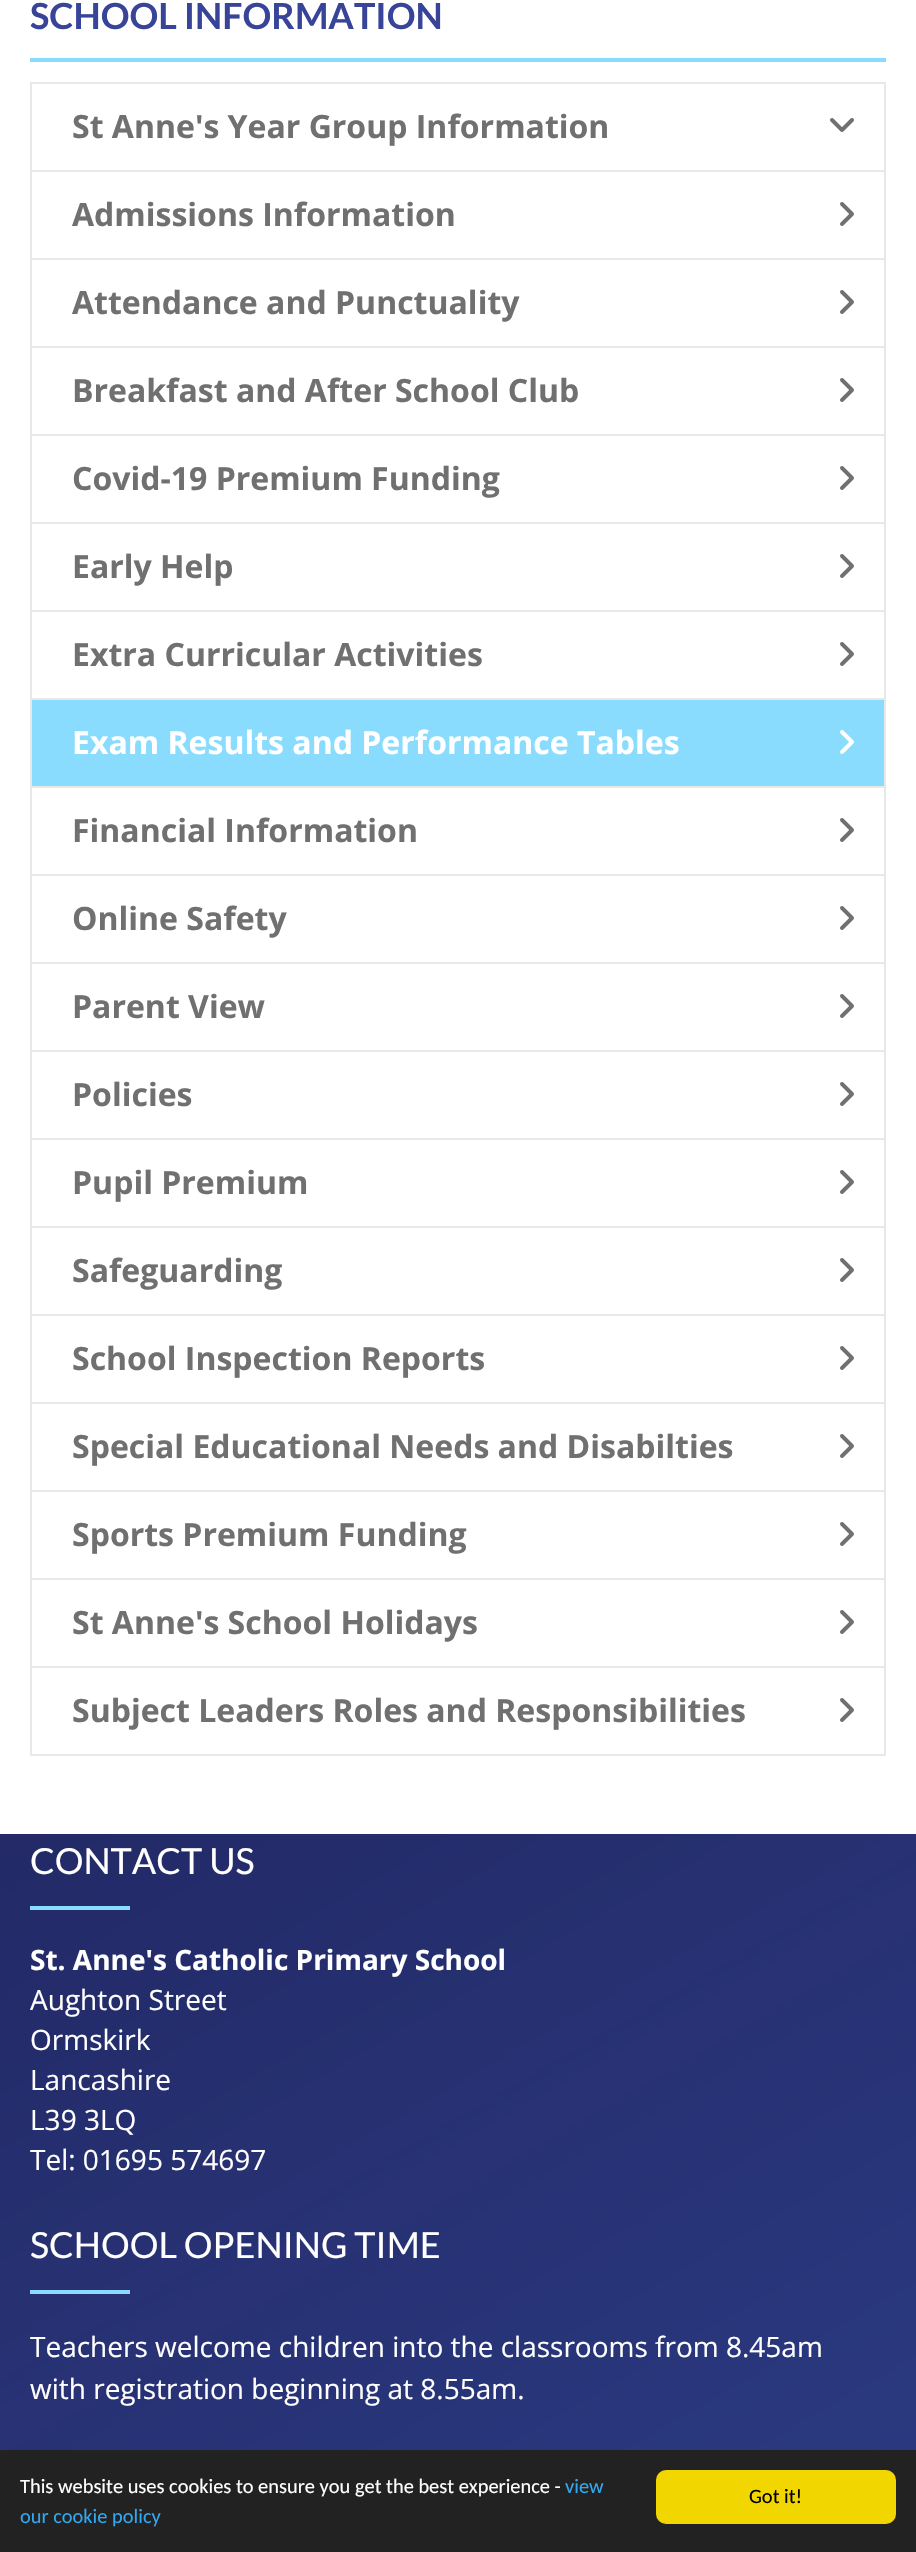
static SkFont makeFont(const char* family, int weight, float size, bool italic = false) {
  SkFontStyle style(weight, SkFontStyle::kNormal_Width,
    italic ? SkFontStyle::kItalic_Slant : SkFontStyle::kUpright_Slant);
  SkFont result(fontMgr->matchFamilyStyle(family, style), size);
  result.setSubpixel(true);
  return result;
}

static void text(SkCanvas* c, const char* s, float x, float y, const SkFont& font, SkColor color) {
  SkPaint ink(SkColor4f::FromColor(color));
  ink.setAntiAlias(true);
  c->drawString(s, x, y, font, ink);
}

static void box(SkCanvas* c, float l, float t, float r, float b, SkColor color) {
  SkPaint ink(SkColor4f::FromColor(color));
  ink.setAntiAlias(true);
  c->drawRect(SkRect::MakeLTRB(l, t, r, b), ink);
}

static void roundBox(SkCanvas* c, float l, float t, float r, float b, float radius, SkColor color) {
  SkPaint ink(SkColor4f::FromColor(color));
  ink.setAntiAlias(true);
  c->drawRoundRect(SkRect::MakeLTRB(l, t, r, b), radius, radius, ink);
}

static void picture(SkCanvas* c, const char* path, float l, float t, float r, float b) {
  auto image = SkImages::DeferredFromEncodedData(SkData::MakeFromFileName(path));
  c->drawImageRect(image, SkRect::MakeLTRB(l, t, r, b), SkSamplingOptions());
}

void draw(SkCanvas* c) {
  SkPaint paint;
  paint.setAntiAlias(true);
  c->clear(0xffffffff);
  SkFont face1 = makeFont("Lato", 700, 36);
  text(c, "SCHOOL INFORMATION", 30, 29, face1, 0xff374498);
  box(c, 30, 58, 886, 62, 0xff89dcfe);
  paint.setStyle(SkPaint::kStroke_Style);
  paint.setStrokeWidth(2);
  paint.setColor(0xffe8e8e8);
  c->drawRect(SkRect::MakeLTRB(31, 83, 885, 171), paint);
  SkFont face2 = makeFont("Open Sans", 700, 32);
  text(c, "St Anne's Year Group Information", 72, 138, face2, 0xff707070);
  picture(c, "img_01.png", 830, 118, 854, 132);
  c->drawRect(SkRect::MakeLTRB(31, 171, 885, 259), paint);
  text(c, "Admissions Information", 72, 226, face2, 0xff707070);
  picture(c, "img_02.png", 840, 202, 854, 226);
  c->drawRect(SkRect::MakeLTRB(31, 259, 885, 347), paint);
  text(c, "Attendance and Punctuality", 72, 314, face2, 0xff707070);
  picture(c, "img_02.png", 840, 290, 854, 314);
  c->drawRect(SkRect::MakeLTRB(31, 347, 885, 435), paint);
  text(c, "Breakfast and After School Club", 72, 402, face2, 0xff707070);
  picture(c, "img_02.png", 840, 378, 854, 402);
  c->drawRect(SkRect::MakeLTRB(31, 435, 885, 523), paint);
  text(c, "Covid-19 Premium Funding", 72, 490, face2, 0xff707070);
  picture(c, "img_02.png", 840, 466, 854, 490);
  c->drawRect(SkRect::MakeLTRB(31, 523, 885, 611), paint);
  text(c, "Early Help", 72, 578, face2, 0xff707070);
  picture(c, "img_02.png", 840, 554, 854, 578);
  c->drawRect(SkRect::MakeLTRB(31, 611, 885, 699), paint);
  text(c, "Extra Curricular Activities", 72, 666, face2, 0xff707070);
  picture(c, "img_02.png", 840, 642, 854, 666);
  paint.setStyle(SkPaint::kFill_Style);
  paint.setColor(0xff89dcfe);
  c->drawRect(SkRect::MakeLTRB(31, 699, 885, 787), paint);
  paint.setStyle(SkPaint::kStroke_Style);
  paint.setColor(0xffe8e8e8);
  c->drawRect(SkRect::MakeLTRB(31, 699, 885, 787), paint);
  text(c, "Exam Results and Performance Tables", 72, 754, face2, 0xffffffff);
  picture(c, "img_03.png", 840, 730, 854, 754);
  c->drawRect(SkRect::MakeLTRB(31, 787, 885, 875), paint);
  text(c, "Financial Information", 72, 842, face2, 0xff707070);
  picture(c, "img_02.png", 840, 818, 854, 842);
  c->drawRect(SkRect::MakeLTRB(31, 875, 885, 963), paint);
  text(c, "Online Safety", 72, 930, face2, 0xff707070);
  picture(c, "img_02.png", 840, 906, 854, 930);
  c->drawRect(SkRect::MakeLTRB(31, 963, 885, 1051), paint);
  text(c, "Parent View", 72, 1018, face2, 0xff707070);
  picture(c, "img_02.png", 840, 994, 854, 1018);
  c->drawRect(SkRect::MakeLTRB(31, 1051, 885, 1139), paint);
  text(c, "Policies", 72, 1106, face2, 0xff707070);
  picture(c, "img_02.png", 840, 1082, 854, 1106);
  c->drawRect(SkRect::MakeLTRB(31, 1139, 885, 1227), paint);
  text(c, "Pupil Premium", 72, 1194, face2, 0xff707070);
  picture(c, "img_02.png", 840, 1170, 854, 1194);
  c->drawRect(SkRect::MakeLTRB(31, 1227, 885, 1315), paint);
  text(c, "Safeguarding", 72, 1282, face2, 0xff707070);
  picture(c, "img_02.png", 840, 1258, 854, 1282);
  c->drawRect(SkRect::MakeLTRB(31, 1315, 885, 1403), paint);
  text(c, "School Inspection Reports", 72, 1370, face2, 0xff707070);
  picture(c, "img_02.png", 840, 1346, 854, 1370);
  c->drawRect(SkRect::MakeLTRB(31, 1403, 885, 1491), paint);
  text(c, "Special Educational Needs and Disabilties", 72, 1458, face2, 0xff707070);
  picture(c, "img_02.png", 840, 1434, 854, 1458);
  c->drawRect(SkRect::MakeLTRB(31, 1491, 885, 1579), paint);
  text(c, "Sports Premium Funding", 72, 1546, face2, 0xff707070);
  picture(c, "img_02.png", 840, 1522, 854, 1546);
  c->drawRect(SkRect::MakeLTRB(31, 1579, 885, 1667), paint);
  text(c, "St Anne's School Holidays", 72, 1634, face2, 0xff707070);
  picture(c, "img_02.png", 840, 1610, 854, 1634);
  c->drawRect(SkRect::MakeLTRB(31, 1667, 885, 1755), paint);
  text(c, "Subject Leaders Roles and Responsibilities", 72, 1722, face2, 0xff707070);
  picture(c, "img_02.png", 840, 1698, 854, 1722);
  picture(c, "img_04.png", 0, 1834, 916, 2450);
  SkFont face3 = makeFont("Lato", 400, 36);
  text(c, "CONTACT US", 30, 1874, face3, 0xffffffff);
  box(c, 30, 1906, 130, 1910, 0xff89dcfe);
  SkFont face4 = makeFont("Open Sans", 700, 28);
  text(c, "St. Anne's Catholic Primary School", 30, 1970, face4, 0xffffffff);
  SkFont face5 = makeFont("Open Sans", 400, 28);
  text(c, "Aughton Street", 30, 2010, face5, 0xffffffff);
  text(c, "Ormskirk", 30, 2050, face5, 0xffffffff);
  text(c, "Lancashire", 30, 2090, face5, 0xffffffff);
  text(c, "L39 3LQ", 30, 2130, face5, 0xffffffff);
  text(c, "Tel: 01695 574697", 30, 2170, face5, 0xffffffff);
  text(c, "SCHOOL OPENING TIME", 30, 2258, face3, 0xffffffff);
  box(c, 30, 2290, 130, 2294, 0xff89dcfe);
  text(c, "Teachers welcome children into the classrooms from 8.45am", 30, 2357, face5, 0xffffffff);
  text(c, "with registration beginning at 8.55am.", 30, 2399, face5, 0xffffffff);
  box(c, 0, 2450, 916, 2552, 0xff222222);
  SkFont face6 = makeFont("Carlito", 400, 20.4f);
  text(c, "This website uses cookies to ensure you get the best experience -", 20, 2493, face6, 0xffffffff);
  text(c, "view", 565, 2493, face6, 0xff31a8f0);
  text(c, "our cookie policy", 20, 2523, face6, 0xff31a8f0);
  roundBox(c, 656, 2470, 896, 2524, 10, 0xfff1d600);
  text(c, "Got it!", 749, 2503, face6, 0xff000000);
}
